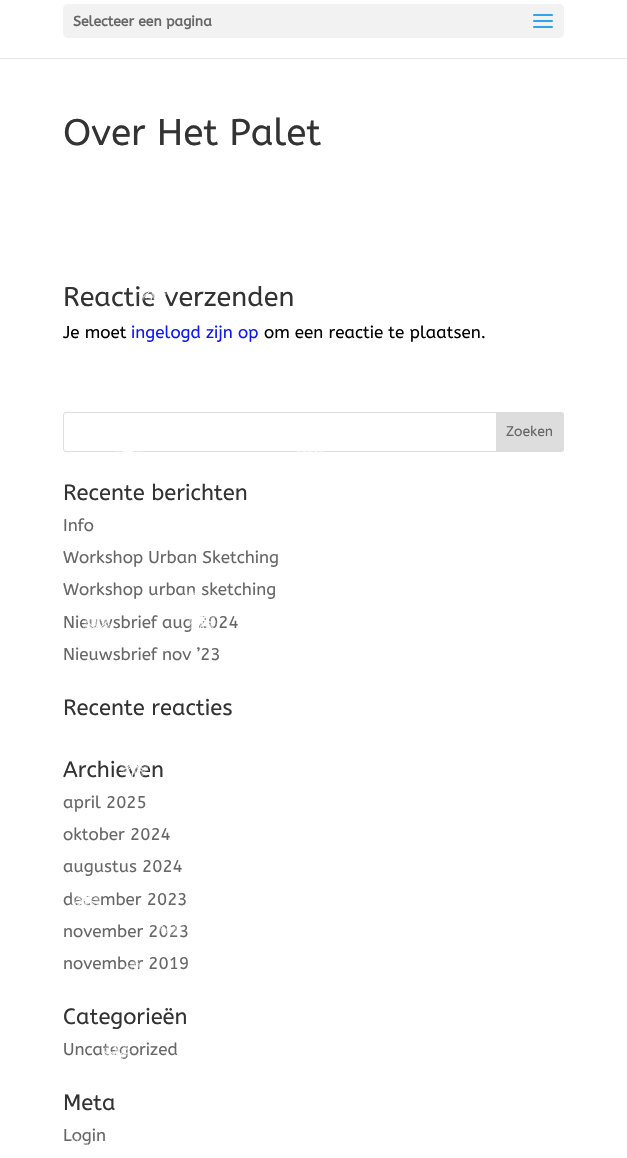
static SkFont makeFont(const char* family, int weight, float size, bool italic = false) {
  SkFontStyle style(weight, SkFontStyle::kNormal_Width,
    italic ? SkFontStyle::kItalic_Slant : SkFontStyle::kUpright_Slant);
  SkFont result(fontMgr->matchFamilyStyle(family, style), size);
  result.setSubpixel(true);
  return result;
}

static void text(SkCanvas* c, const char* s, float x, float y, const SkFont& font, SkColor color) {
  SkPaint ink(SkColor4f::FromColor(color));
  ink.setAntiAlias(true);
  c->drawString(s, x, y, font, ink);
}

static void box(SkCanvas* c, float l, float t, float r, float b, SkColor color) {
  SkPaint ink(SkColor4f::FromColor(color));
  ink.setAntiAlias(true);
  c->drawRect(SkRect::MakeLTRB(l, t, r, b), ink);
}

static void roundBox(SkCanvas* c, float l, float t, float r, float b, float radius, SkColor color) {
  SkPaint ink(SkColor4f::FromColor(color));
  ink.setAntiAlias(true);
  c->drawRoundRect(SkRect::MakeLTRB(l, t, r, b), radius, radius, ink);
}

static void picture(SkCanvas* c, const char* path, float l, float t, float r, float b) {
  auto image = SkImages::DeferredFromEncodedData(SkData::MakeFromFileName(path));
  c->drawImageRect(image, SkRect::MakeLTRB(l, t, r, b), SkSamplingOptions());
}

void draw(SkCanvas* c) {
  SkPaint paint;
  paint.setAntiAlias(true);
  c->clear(0xffffffff);
  box(c, 0, 58, 627, 59, 0xffe6e6e6);
  roundBox(c, 63, 4, 564, 38, 5, 0xfff2f2f2);
  SkFont face1 = makeFont("ABeeZee", 700, 14);
  text(c, "Selecteer een pagina", 73, 26, face1, 0xff666666);
  picture(c, "img_01.png", 533, 14, 553, 28);
  SkFont face2 = makeFont("ABeeZee", 400, 37);
  text(c, "Over Het Palet", 63, 145, face2, 0xff333333);
  SkFont face3 = makeFont("ABeeZee", 400, 27);
  text(c, "Reactie verzenden", 63, 306, face3, 0xff333333);
  SkFont face4 = makeFont("ABeeZee", 400, 17);
  text(c, "Je moet", 63, 338, face4, 0xff000000);
  text(c, "ingelogd zijn op", 131, 338, face4, 0xff0e19f2);
  text(c, "om een reactie te plaatsen.", 264, 338, face4, 0xff000000);
  paint.setStyle(SkPaint::kStroke_Style);
  paint.setStrokeWidth(1);
  paint.setColor(0xffdddddd);
  c->drawRoundRect(SkRect::MakeLTRB(63.5f, 412.5f, 563.5f, 451.5f), 2.5f, 2.5f, paint);
  paint.setStyle(SkPaint::kFill_Style);
  c->drawPath(SkPathBuilder().moveTo(496.5f, 412.5f).lineTo(561, 412.5f).cubicTo(562.5f, 412.5f, 563.5f, 413.5f, 563.5f, 415).lineTo(563.5f, 449).cubicTo(563.5f, 450.5f, 562.5f, 451.5f, 561, 451.5f).lineTo(496.5f, 451.5f).close().detach(), paint);
  paint.setStyle(SkPaint::kStroke_Style);
  c->drawPath(SkPathBuilder().moveTo(496.5f, 412.5f).lineTo(561, 412.5f).cubicTo(562.5f, 412.5f, 563.5f, 413.5f, 563.5f, 415).lineTo(563.5f, 449).cubicTo(563.5f, 450.5f, 562.5f, 451.5f, 561, 451.5f).lineTo(496.5f, 451.5f).close().detach(), paint);
  SkFont face5 = makeFont("ABeeZee", 400, 14);
  text(c, "Zoeken", 506, 436, face5, 0xff666666);
  SkFont face6 = makeFont("ABeeZee", 400, 22);
  text(c, "Recente berichten", 63, 500, face6, 0xff333333);
  text(c, "Info", 63, 531, face4, 0xff666666);
  text(c, "Workshop Urban Sketching", 63, 563, face4, 0xff666666);
  text(c, "Workshop urban sketching", 63, 595, face4, 0xff666666);
  text(c, "Nieuwsbrief aug 2024", 63, 628, face4, 0xff666666);
  text(c, "Nieuwsbrief nov ’23", 63, 660, face4, 0xff666666);
  text(c, "Recente reacties", 63, 715, face6, 0xff333333);
  text(c, "Archieven", 63, 777, face6, 0xff333333);
  text(c, "april 2025", 63, 808, face4, 0xff666666);
  text(c, "oktober 2024", 63, 840, face4, 0xff666666);
  text(c, "augustus 2024", 63, 872, face4, 0xff666666);
  text(c, "december 2023", 63, 905, face4, 0xff666666);
  text(c, "november 2023", 63, 937, face4, 0xff666666);
  text(c, "november 2019", 63, 969, face4, 0xff666666);
  text(c, "Categorieën", 63, 1024, face6, 0xff333333);
  text(c, "Uncategorized", 63, 1055, face4, 0xff666666);
  text(c, "Meta", 63, 1110, face6, 0xff333333);
  text(c, "Login", 63, 1141, face4, 0xff666666);
  picture(c, "img_02.png", 138, 291, 168, 305);
  picture(c, "img_03.png", 115, 451, 142, 452);
  picture(c, "img_04.png", 296, 451, 325, 452);
  picture(c, "img_05.png", 180, 590, 204, 622);
  picture(c, "img_06.png", 82, 619, 111, 629);
  picture(c, "img_07.png", 188, 615, 217, 630);
  picture(c, "img_08.png", 119, 765, 149, 777);
  picture(c, "img_09.png", 71, 893, 99, 906);
  picture(c, "img_10.png", 154, 904, 184, 936);
  picture(c, "img_11.png", 124, 960, 140, 969);
  picture(c, "img_12.png", 186, 964, 187, 966);
  picture(c, "img_13.png", 104, 1046, 131, 1059);
  picture(c, "img_14.png", 70, 1138, 88, 1145);
}
